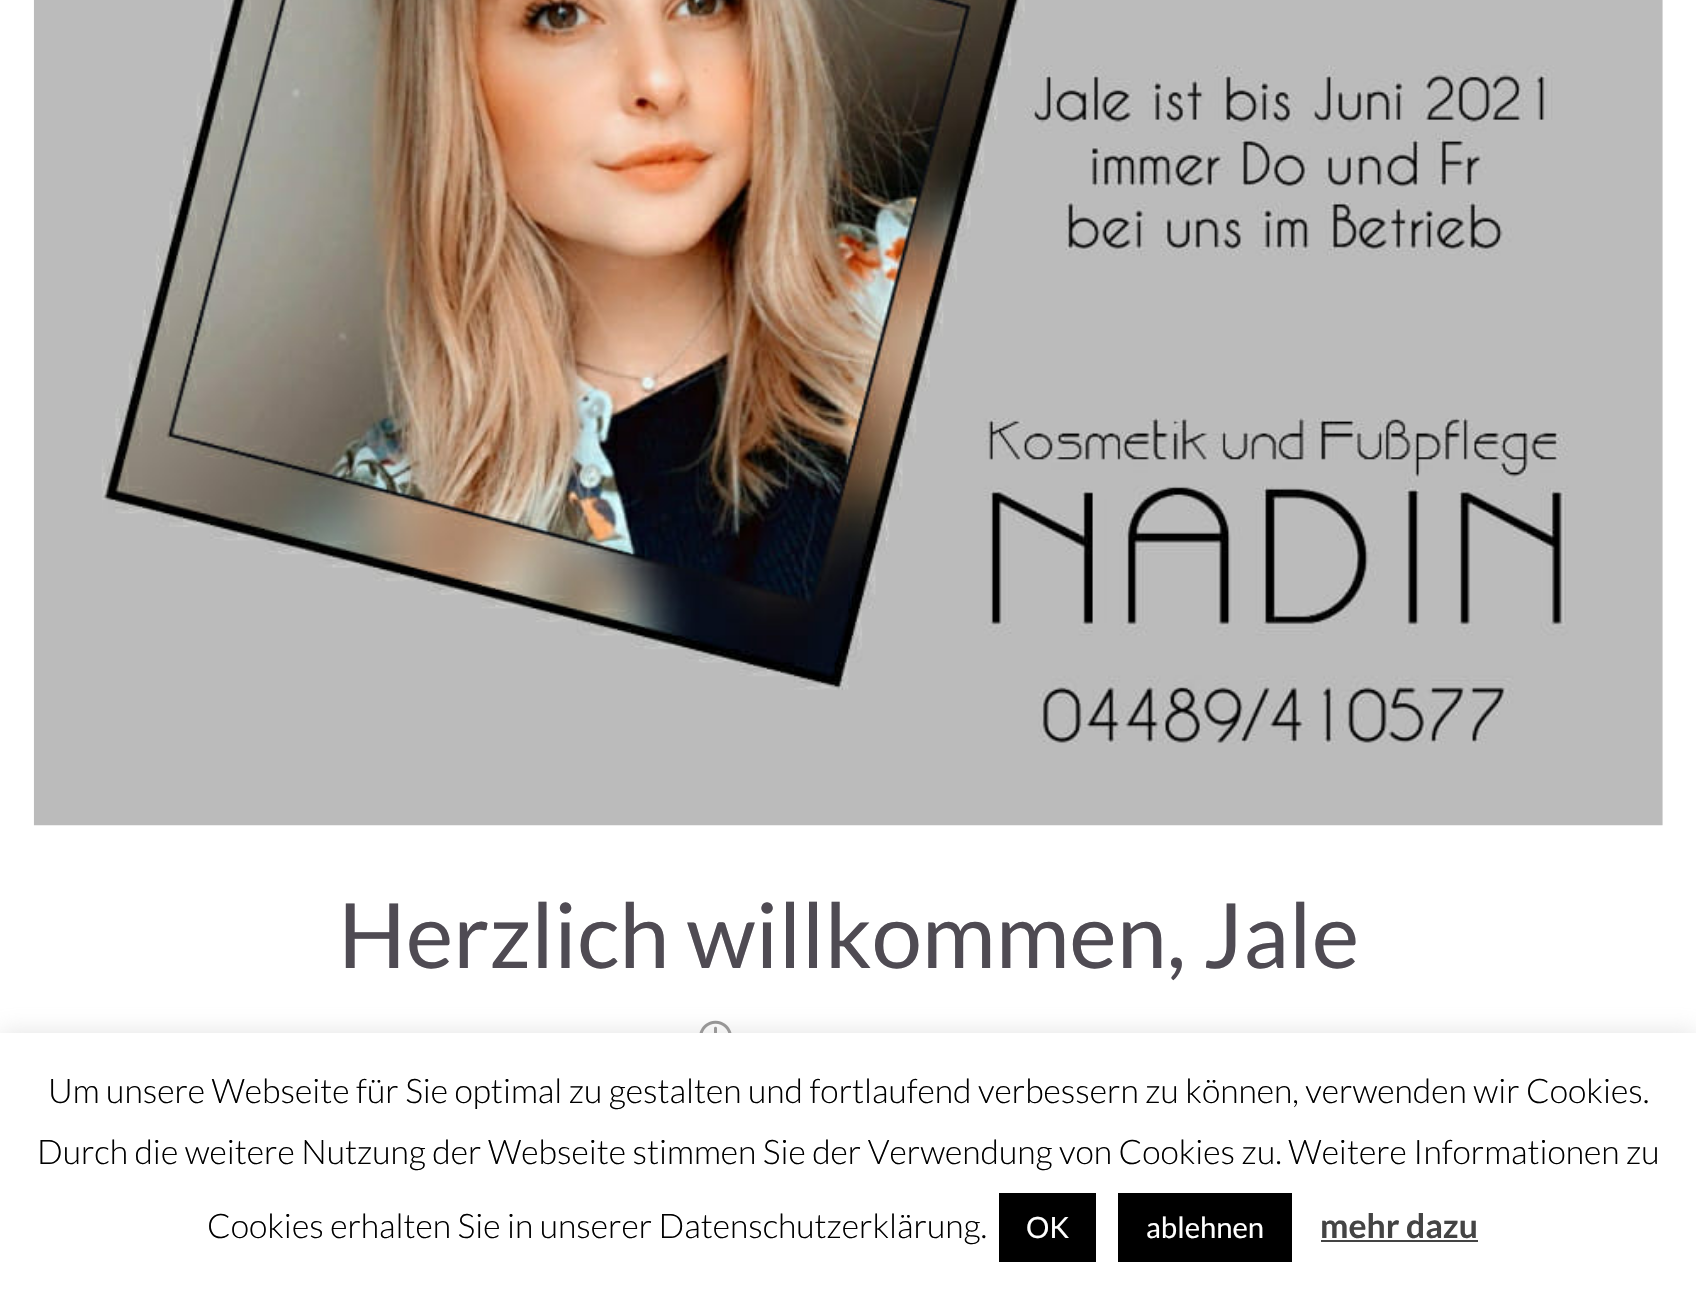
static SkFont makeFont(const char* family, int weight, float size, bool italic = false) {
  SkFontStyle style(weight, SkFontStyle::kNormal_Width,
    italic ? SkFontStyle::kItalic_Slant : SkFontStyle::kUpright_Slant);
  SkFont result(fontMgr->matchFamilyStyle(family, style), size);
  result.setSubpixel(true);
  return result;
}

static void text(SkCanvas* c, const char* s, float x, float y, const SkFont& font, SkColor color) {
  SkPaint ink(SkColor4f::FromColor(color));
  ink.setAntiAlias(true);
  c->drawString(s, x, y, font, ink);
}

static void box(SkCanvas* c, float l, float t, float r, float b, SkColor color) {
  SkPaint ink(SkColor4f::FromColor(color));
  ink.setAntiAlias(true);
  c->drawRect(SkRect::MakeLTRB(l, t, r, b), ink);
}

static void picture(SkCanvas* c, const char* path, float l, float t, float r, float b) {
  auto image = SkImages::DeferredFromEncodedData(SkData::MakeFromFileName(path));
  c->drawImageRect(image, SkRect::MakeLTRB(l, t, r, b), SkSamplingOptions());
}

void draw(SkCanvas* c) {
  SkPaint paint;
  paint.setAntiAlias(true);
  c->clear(0xffffffff);
  picture(c, "img_01.png", 33, 0, 1663, 826);
  SkFont face1 = makeFont("Lato", 400, 90);
  text(c, "Herzlich willkommen, Jale", 338, 968, face1, 0xff4f4b53);
  picture(c, "img_02.png", 699, 1020, 732, 1033);
  paint.setColor(0x4dacabab);
  paint.setMaskFilter(SkMaskFilter::MakeBlur(kNormal_SkBlurStyle, 11));
  c->drawRect(SkRect::MakeLTRB(0, 1031, 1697, 1298), paint);
  paint.setMaskFilter(nullptr);
  box(c, 0, 1033, 1696, 1300, 0xffffffff);
  SkFont face2 = makeFont("Lato", 300, 33.75f);
  text(c, "Um unsere Webseite für Sie optimal zu gestalten und fortlaufend verbessern zu können, verwenden wir Cookies.", 48, 1103, face2, 0xff000000);
  text(c, "Durch die weitere Nutzung der Webseite stimmen Sie der Verwendung von Cookies zu. Weitere Informationen zu", 37, 1164, face2, 0xff000000);
  text(c, "Cookies erhalten Sie in unserer Datenschutzerklärung.", 207, 1238, face2, 0xff000000);
  box(c, 999, 1193, 1096, 1262, 0xff000000);
  SkFont face3 = makeFont("Lato", 400, 29.25f);
  text(c, "OK", 1026, 1238, face3, 0xffffffff);
  box(c, 1118, 1193, 1292, 1262, 0xff000000);
  text(c, "ablehnen", 1146, 1238, face3, 0xffffffff);
  SkFont face4 = makeFont("Lato", 700, 33.75f);
  text(c, "mehr dazu", 1320, 1238, face4, 0xff444444);
  box(c, 1321, 1240, 1478, 1242, 0xff444444);
}
